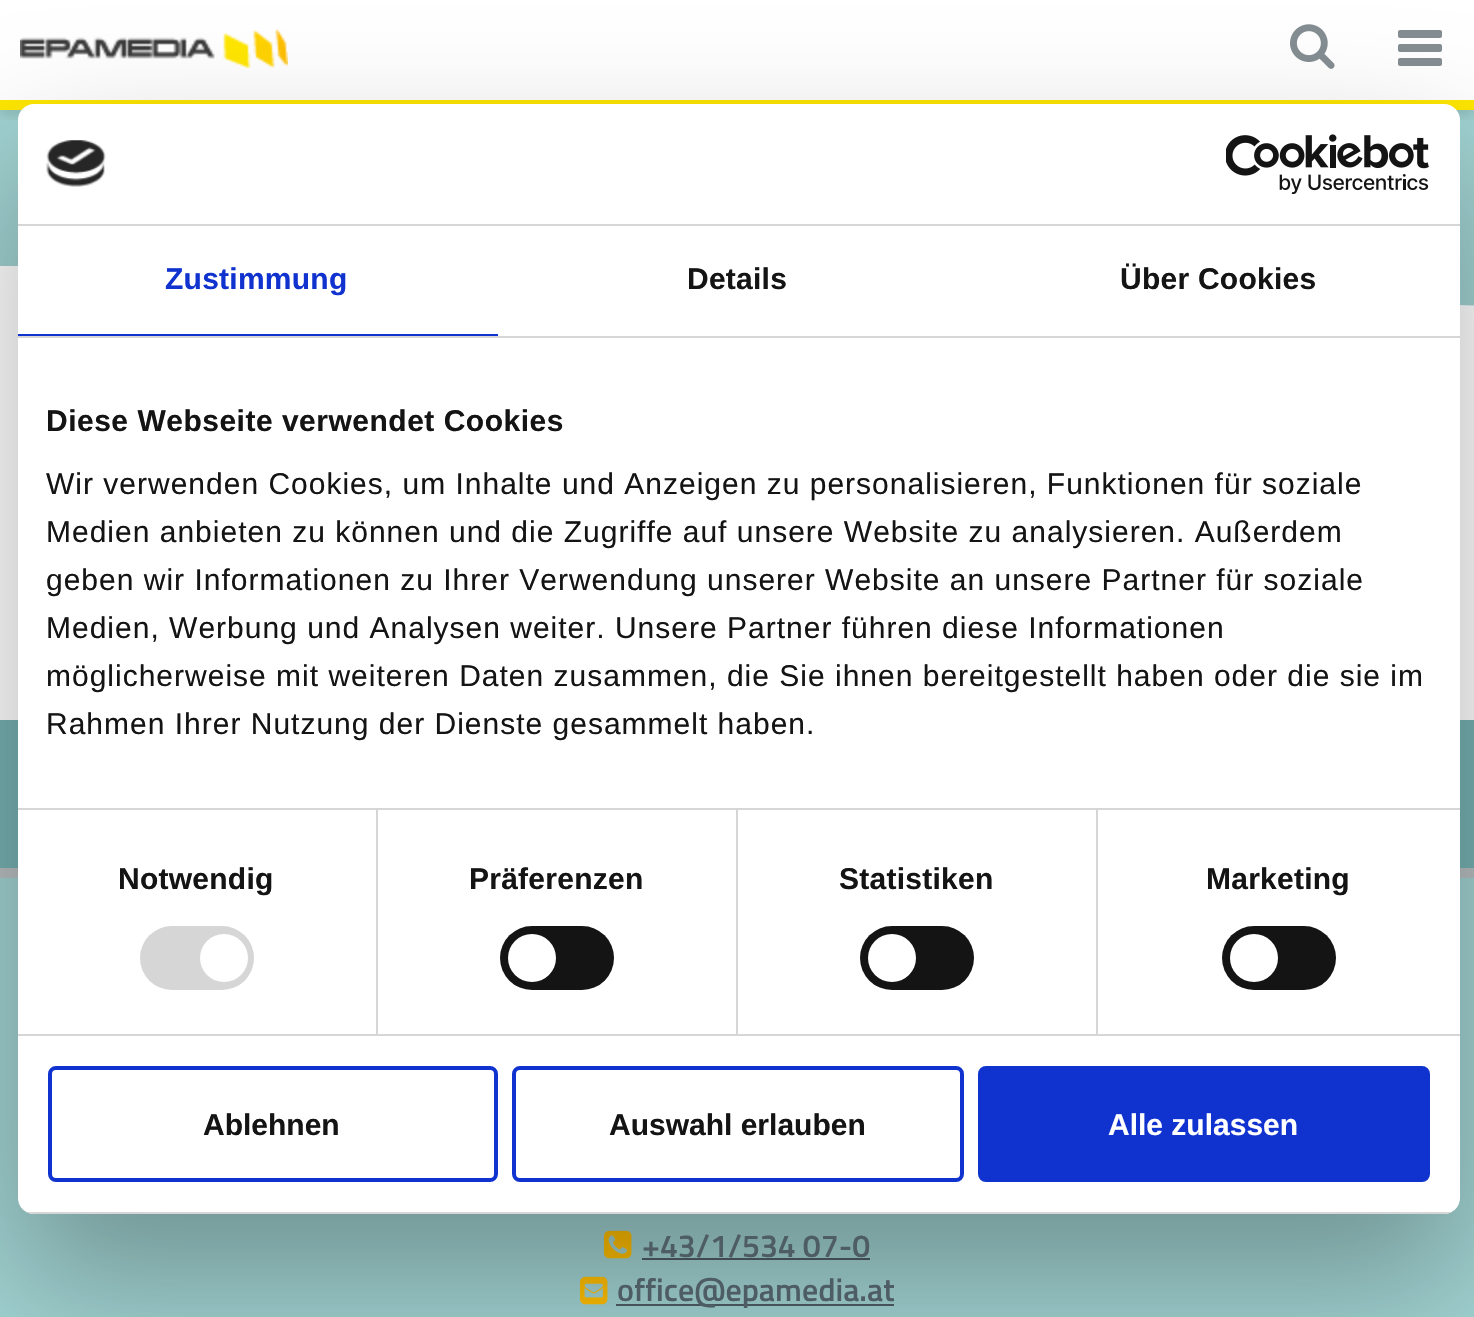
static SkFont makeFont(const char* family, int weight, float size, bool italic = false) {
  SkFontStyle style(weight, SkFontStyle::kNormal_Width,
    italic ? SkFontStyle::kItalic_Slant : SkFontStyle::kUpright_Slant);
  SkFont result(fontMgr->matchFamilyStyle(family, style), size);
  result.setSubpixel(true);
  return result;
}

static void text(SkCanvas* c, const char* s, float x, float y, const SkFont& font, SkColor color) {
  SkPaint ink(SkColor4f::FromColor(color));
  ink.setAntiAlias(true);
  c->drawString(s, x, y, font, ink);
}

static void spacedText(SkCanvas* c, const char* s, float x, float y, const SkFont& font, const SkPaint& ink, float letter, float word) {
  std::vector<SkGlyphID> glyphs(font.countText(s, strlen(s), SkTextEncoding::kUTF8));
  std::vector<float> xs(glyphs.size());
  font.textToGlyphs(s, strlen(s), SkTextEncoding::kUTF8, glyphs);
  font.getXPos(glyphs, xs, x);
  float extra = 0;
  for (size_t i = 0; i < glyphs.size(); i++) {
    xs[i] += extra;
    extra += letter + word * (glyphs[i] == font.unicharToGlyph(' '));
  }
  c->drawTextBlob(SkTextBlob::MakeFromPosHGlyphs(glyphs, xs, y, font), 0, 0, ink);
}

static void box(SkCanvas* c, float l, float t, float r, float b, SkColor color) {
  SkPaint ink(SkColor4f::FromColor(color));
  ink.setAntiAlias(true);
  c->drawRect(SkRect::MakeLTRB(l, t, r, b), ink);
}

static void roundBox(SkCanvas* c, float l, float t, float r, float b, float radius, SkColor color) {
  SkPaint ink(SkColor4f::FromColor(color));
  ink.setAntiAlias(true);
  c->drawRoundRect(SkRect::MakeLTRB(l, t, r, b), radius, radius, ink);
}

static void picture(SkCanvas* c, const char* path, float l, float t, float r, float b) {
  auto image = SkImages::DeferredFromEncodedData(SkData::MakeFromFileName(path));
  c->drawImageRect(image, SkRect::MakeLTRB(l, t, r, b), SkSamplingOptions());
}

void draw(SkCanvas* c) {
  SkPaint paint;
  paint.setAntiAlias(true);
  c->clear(0xffffffff);
  box(c, 0, 110, 1474, 306, 0xffa0d2d1);
  c->save();
  c->clipRect(SkRect::MakeLTRB(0, 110, 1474, 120));
  paint.setColor(0x1a000000);
  paint.setMaskFilter(SkMaskFilter::MakeBlur(kNormal_SkBlurStyle, 5));
  c->drawRect(SkRect::MakeLTRB(0, 6, 1474, 116), paint);
  paint.setMaskFilter(nullptr);
  c->restore();
  box(c, 0, 100, 1474, 110, 0xffffe600);
  picture(c, "img_03.png", 20, 29, 288, 68);
  picture(c, "img_04.png", 1290, 24, 1335, 69);
  roundBox(c, 1398, 58, 1442, 66, 2, 0xff838d92);
  roundBox(c, 1398, 30, 1442, 38, 2, 0xff838d92);
  roundBox(c, 1398, 44, 1442, 52, 2, 0xff838d92);
  picture(c, "img_05.png", 0, 266, 1474, 306);
  box(c, 0, 720, 1474, 868, 0xff76b1b2);
  box(c, 0, 868, 1474, 878, 0xffb8bec1);
  box(c, 0, 878, 1474, 1317, 0xffa0d2d1);
  picture(c, "img_06.png", 604, 1230, 632, 1259);
  box(c, 642, 1258, 870, 1260, 0xff4e5c64);
  picture(c, "img_07.png", 580, 1276, 608, 1305);
  box(c, 616, 1304, 894, 1306, 0xff4e5c64);
  paint.setColor(0x4d000000);
  paint.setMaskFilter(SkMaskFilter::MakeBlur(kNormal_SkBlurStyle, 68));
  c->drawRoundRect(SkRect::MakeLTRB(18, 168, 1460, 1278), 16, 16, paint);
  paint.setMaskFilter(nullptr);
  roundBox(c, 18, 104, 1460, 1214, 16, 0xffffffff);
  box(c, 18, 224, 1460, 226, 0xffd6d6d6);
  picture(c, "img_01.png", 46, 140, 106, 187);
  picture(c, "img_02.png", 1226, 134, 1429, 194);
  box(c, 18, 336, 1460, 338, 0xffd6d6d6);
  box(c, 18, 334, 498, 336, 0xff1032cf);
  SkFont face1 = makeFont("Liberation Sans", 700, 30);
  paint.setColor(0xff1032cf);
  spacedText(c, "Zustimmung", 165, 289, face1, paint, 0.25f, 0);
  paint.setColor(0xff141414);
  spacedText(c, "Details", 687, 289, face1, paint, 0.25f, 0);
  spacedText(c, "Über Cookies", 1120, 289, face1, paint, 0.25f, 0);
  box(c, 18, 808, 1460, 810, 0xffd6d6d6);
  spacedText(c, "Diese Webseite verwendet Cookies", 46, 431, face1, paint, 0.5f, 0);
  SkFont face2 = makeFont("Liberation Sans", 400, 30);
  spacedText(c, "Wir verwenden Cookies, um Inhalte und Anzeigen zu personalisieren, Funktionen für soziale", 46, 494, face2, paint, 1, 0);
  spacedText(c, "Medien anbieten zu können und die Zugriffe auf unsere Website zu analysieren. Außerdem", 46, 542, face2, paint, 1, 0);
  spacedText(c, "geben wir Informationen zu Ihrer Verwendung unserer Website an unsere Partner für soziale", 46, 590, face2, paint, 1, 0);
  spacedText(c, "Medien, Werbung und Analysen weiter. Unsere Partner führen diese Informationen", 46, 638, face2, paint, 1, 0);
  spacedText(c, "möglicherweise mit weiteren Daten zusammen, die Sie ihnen bereitgestellt haben oder die sie im", 46, 686, face2, paint, 1, 0);
  spacedText(c, "Rahmen Ihrer Nutzung der Dienste gesammelt haben.", 46, 734, face2, paint, 1, 0);
  box(c, 18, 1034, 1460, 1036, 0xffd6d6d6);
  box(c, 376, 810, 378, 1034, 0xffd6d6d6);
  spacedText(c, "Notwendig", 118, 889, face1, paint, 0.25f, 0);
  roundBox(c, 140, 926, 254, 990, 32, 0xffd6d6d6);
  paint.setColor(0xffffffff);
  c->drawCircle(224, 958, 24, paint);
  box(c, 736, 810, 738, 1034, 0xffd6d6d6);
  paint.setColor(0xff141414);
  spacedText(c, "Präferenzen", 469, 889, face1, paint, 0.25f, 0);
  roundBox(c, 500, 926, 614, 990, 32, 0xff141414);
  paint.setColor(0xffffffff);
  c->drawCircle(532, 958, 24, paint);
  box(c, 1096, 810, 1098, 1034, 0xffd6d6d6);
  paint.setColor(0xff141414);
  spacedText(c, "Statistiken", 839, 889, face1, paint, 0.25f, 0);
  roundBox(c, 860, 926, 974, 990, 32, 0xff141414);
  paint.setColor(0xffffffff);
  c->drawCircle(892, 958, 24, paint);
  paint.setColor(0xff141414);
  spacedText(c, "Marketing", 1206, 889, face1, paint, 0.25f, 0);
  roundBox(c, 1222, 926, 1336, 990, 32, 0xff141414);
  paint.setColor(0xffffffff);
  c->drawCircle(1254, 958, 24, paint);
  c->save();
  c->clipPath(SkPathBuilder().moveTo(34, 104).lineTo(1444, 104).cubicTo(1453, 104, 1460, 111, 1460, 120).lineTo(1460, 1198).cubicTo(1460, 1207, 1453, 1214, 1444, 1214).lineTo(34, 1214).cubicTo(25, 1214, 18, 1207, 18, 1198).lineTo(18, 120).cubicTo(18, 111, 25, 104, 34, 104).close().detach(), true);
  box(c, 18, 1212, 1460, 1214, 0xffd6d6d6);
  c->restore();
  paint.setStyle(SkPaint::kStroke_Style);
  paint.setStrokeWidth(4);
  paint.setColor(0xff1032cf);
  c->drawRoundRect(SkRect::MakeLTRB(50, 1068, 496, 1180), 6, 6, paint);
  text(c, "Ablehnen", 203, 1135, face1, 0xff141414);
  c->drawRoundRect(SkRect::MakeLTRB(514, 1068, 962, 1180), 6, 6, paint);
  text(c, "Auswahl erlauben", 609, 1135, face1, 0xff141414);
  paint.setStyle(SkPaint::kFill_Style);
  c->drawRoundRect(SkRect::MakeLTRB(980, 1068, 1428, 1180), 6, 6, paint);
  paint.setStyle(SkPaint::kStroke_Style);
  c->drawRoundRect(SkRect::MakeLTRB(980, 1068, 1428, 1180), 6, 6, paint);
  text(c, "Alle zulassen", 1108, 1135, face1, 0xffffffff);
  SkFont face3 = makeFont("Titillium Web", 600, 32);
  text(c, "+43/1/534 07-0", 642, 1257, face3, 0xff4e5c64);
  text(c, "office@epamedia.at", 617, 1301, face3, 0xff4e5c64);
}
